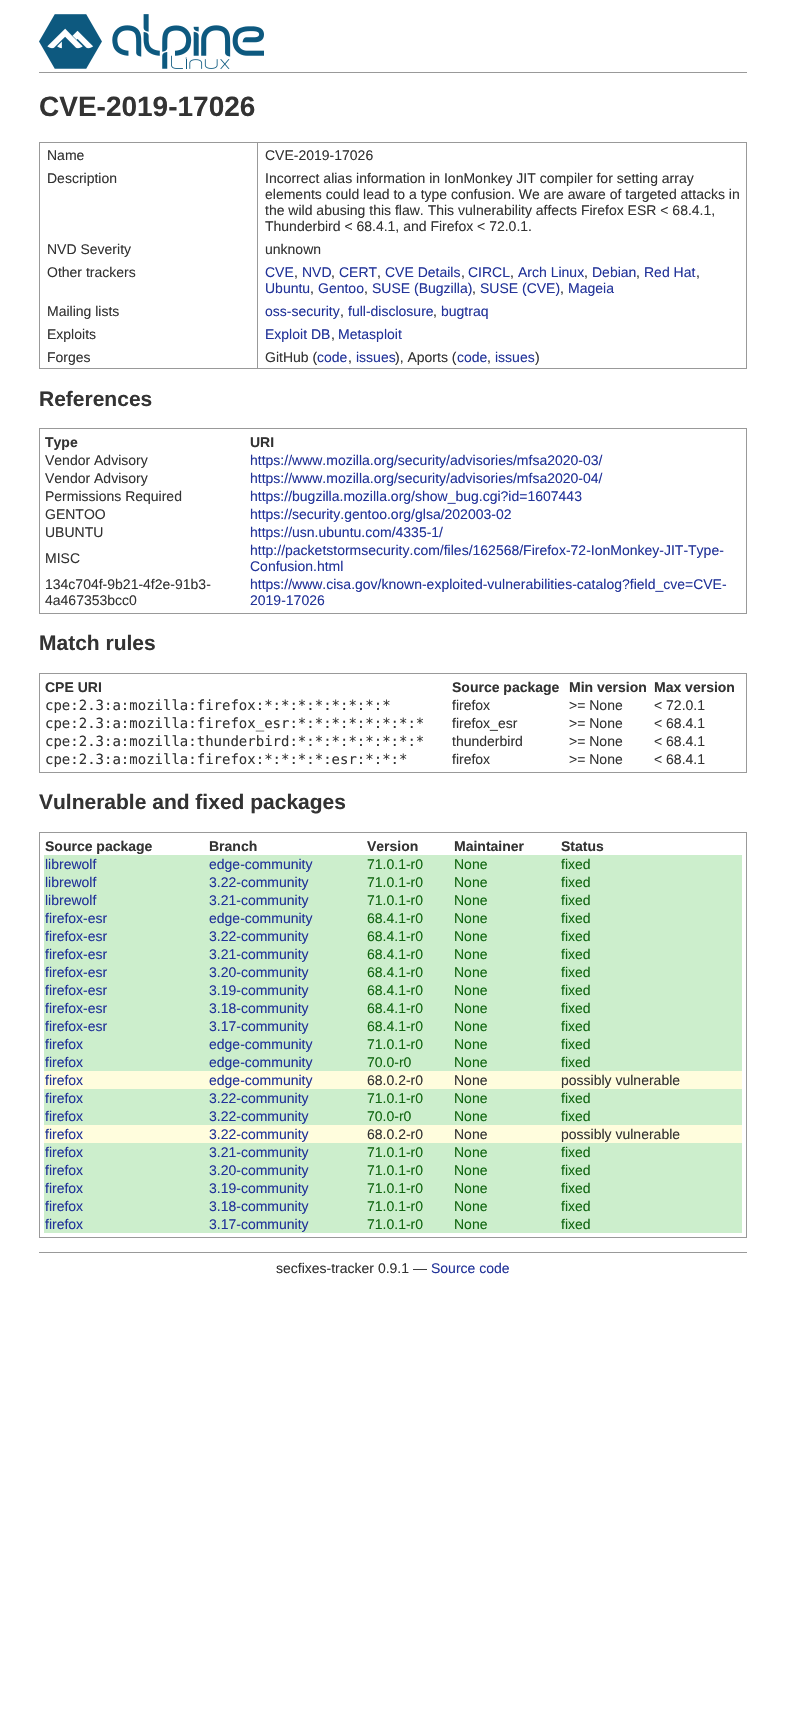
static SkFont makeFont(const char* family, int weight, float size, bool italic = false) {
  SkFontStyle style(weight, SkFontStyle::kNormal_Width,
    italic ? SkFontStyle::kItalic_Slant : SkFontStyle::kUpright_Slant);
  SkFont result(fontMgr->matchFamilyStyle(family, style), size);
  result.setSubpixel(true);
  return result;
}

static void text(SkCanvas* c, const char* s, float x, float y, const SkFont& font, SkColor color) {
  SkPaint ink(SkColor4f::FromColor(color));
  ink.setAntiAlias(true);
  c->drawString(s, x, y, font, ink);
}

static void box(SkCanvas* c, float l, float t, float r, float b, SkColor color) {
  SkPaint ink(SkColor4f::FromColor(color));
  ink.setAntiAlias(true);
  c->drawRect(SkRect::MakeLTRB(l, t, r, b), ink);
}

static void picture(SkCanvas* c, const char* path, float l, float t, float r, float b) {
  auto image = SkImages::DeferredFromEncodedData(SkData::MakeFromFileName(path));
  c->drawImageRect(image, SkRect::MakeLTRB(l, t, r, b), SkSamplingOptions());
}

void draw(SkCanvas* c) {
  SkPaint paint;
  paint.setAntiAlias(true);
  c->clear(0xffffffff);
  box(c, 39, 72, 747, 73, 0xff999999);
  picture(c, "img_01.png", 39, 14, 264, 69);
  SkFont face1 = makeFont("Liberation Sans", 700, 28);
  text(c, "CVE-2019-17026", 39, 116, face1, 0xff333333);
  paint.setStyle(SkPaint::kStroke_Style);
  paint.setStrokeWidth(1);
  paint.setColor(0xff999999);
  c->drawRect(SkRect::MakeLTRB(39.5f, 142.5f, 746.5f, 368.5f), paint);
  SkFont face2 = makeFont("Liberation Sans", 400, 14);
  text(c, "Name", 47, 160, face2, 0xff333333);
  box(c, 257, 143, 258, 368, 0xff999999);
  text(c, "CVE-2019-17026", 265, 160, face2, 0xff333333);
  text(c, "Description", 47, 183, face2, 0xff333333);
  text(c, "Incorrect alias information in IonMonkey JIT compiler for setting array", 265, 183, face2, 0xff333333);
  text(c, "elements could lead to a type confusion. We are aware of targeted attacks in", 265, 199, face2, 0xff333333);
  text(c, "the wild abusing this flaw. This vulnerability affects Firefox ESR < 68.4.1,", 265, 215, face2, 0xff333333);
  text(c, "Thunderbird < 68.4.1, and Firefox < 72.0.1.", 265, 231, face2, 0xff333333);
  text(c, "NVD Severity", 47, 254, face2, 0xff333333);
  text(c, "unknown", 265, 254, face2, 0xff333333);
  text(c, "Other trackers", 47, 277, face2, 0xff333333);
  text(c, "CVE", 265, 277, face2, 0xff223399);
  text(c, ",", 294, 277, face2, 0xff333333);
  text(c, "NVD", 302, 277, face2, 0xff223399);
  text(c, ",", 331, 277, face2, 0xff333333);
  text(c, "CERT", 339, 277, face2, 0xff223399);
  text(c, ",", 377, 277, face2, 0xff333333);
  text(c, "CVE Details", 385, 277, face2, 0xff223399);
  text(c, ",", 461, 277, face2, 0xff333333);
  text(c, "CIRCL", 468, 277, face2, 0xff223399);
  text(c, ",", 510, 277, face2, 0xff333333);
  text(c, "Arch Linux", 518, 277, face2, 0xff223399);
  text(c, ",", 584, 277, face2, 0xff333333);
  text(c, "Debian", 592, 277, face2, 0xff223399);
  text(c, ",", 636, 277, face2, 0xff333333);
  text(c, "Red Hat", 644, 277, face2, 0xff223399);
  text(c, ",", 696, 277, face2, 0xff333333);
  text(c, "Ubuntu", 265, 293, face2, 0xff223399);
  text(c, ",", 310, 293, face2, 0xff333333);
  text(c, "Gentoo", 318, 293, face2, 0xff223399);
  text(c, ",", 364, 293, face2, 0xff333333);
  text(c, "SUSE (Bugzilla)", 372, 293, face2, 0xff223399);
  text(c, ",", 472, 293, face2, 0xff333333);
  text(c, "SUSE (CVE)", 480, 293, face2, 0xff223399);
  text(c, ",", 560, 293, face2, 0xff333333);
  text(c, "Mageia", 568, 293, face2, 0xff223399);
  text(c, "Mailing lists", 47, 316, face2, 0xff333333);
  text(c, "oss-security", 265, 316, face2, 0xff223399);
  text(c, ",", 340, 316, face2, 0xff333333);
  text(c, "full-disclosure", 348, 316, face2, 0xff223399);
  text(c, ",", 433, 316, face2, 0xff333333);
  text(c, "bugtraq", 441, 316, face2, 0xff223399);
  text(c, "Exploits", 47, 339, face2, 0xff333333);
  text(c, "Exploit DB", 265, 339, face2, 0xff223399);
  text(c, ",", 331, 339, face2, 0xff333333);
  text(c, "Metasploit", 338, 339, face2, 0xff223399);
  text(c, "Forges", 47, 362, face2, 0xff333333);
  text(c, "GitHub (", 265, 362, face2, 0xff333333);
  text(c, "code", 317, 362, face2, 0xff223399);
  text(c, ",", 348, 362, face2, 0xff333333);
  text(c, "issues", 356, 362, face2, 0xff223399);
  text(c, "), Aports (", 395, 362, face2, 0xff333333);
  text(c, "code", 457, 362, face2, 0xff223399);
  text(c, ",", 487, 362, face2, 0xff333333);
  text(c, "issues", 495, 362, face2, 0xff223399);
  text(c, ")", 535, 362, face2, 0xff333333);
  SkFont face3 = makeFont("Liberation Sans", 700, 21);
  text(c, "References", 39, 406, face3, 0xff333333);
  c->drawRect(SkRect::MakeLTRB(39.5f, 428.5f, 746.5f, 613.5f), paint);
  SkFont face4 = makeFont("Liberation Sans", 700, 14);
  text(c, "Type", 45, 447, face4, 0xff333333);
  text(c, "URI", 250, 447, face4, 0xff333333);
  text(c, "Vendor Advisory", 45, 465, face2, 0xff333333);
  text(c, "https://www.mozilla.org/security/advisories/mfsa2020-03/", 250, 465, face2, 0xff223399);
  text(c, "Vendor Advisory", 45, 483, face2, 0xff333333);
  text(c, "https://www.mozilla.org/security/advisories/mfsa2020-04/", 250, 483, face2, 0xff223399);
  text(c, "Permissions Required", 45, 501, face2, 0xff333333);
  text(c, "https://bugzilla.mozilla.org/show_bug.cgi?id=1607443", 250, 501, face2, 0xff223399);
  text(c, "GENTOO", 45, 519, face2, 0xff333333);
  text(c, "https://security.gentoo.org/glsa/202003-02", 250, 519, face2, 0xff223399);
  text(c, "UBUNTU", 45, 537, face2, 0xff333333);
  text(c, "https://usn.ubuntu.com/4335-1/", 250, 537, face2, 0xff223399);
  text(c, "MISC", 45, 563, face2, 0xff333333);
  text(c, "http://packetstormsecurity.com/files/162568/Firefox-72-IonMonkey-JIT-Type-", 250, 555, face2, 0xff223399);
  text(c, "Confusion.html", 250, 571, face2, 0xff223399);
  text(c, "134c704f-9b21-4f2e-91b3-", 45, 589, face2, 0xff333333);
  text(c, "4a467353bcc0", 45, 605, face2, 0xff333333);
  text(c, "https://www.cisa.gov/known-exploited-vulnerabilities-catalog?field_cve=CVE-", 250, 589, face2, 0xff223399);
  text(c, "2019-17026", 250, 605, face2, 0xff223399);
  text(c, "Match rules", 39, 650, face3, 0xff333333);
  c->drawRect(SkRect::MakeLTRB(39.5f, 673.5f, 746.5f, 772.5f), paint);
  text(c, "CPE URI", 45, 692, face4, 0xff333333);
  text(c, "Source package", 452, 692, face4, 0xff333333);
  text(c, "Min version", 569, 692, face4, 0xff333333);
  text(c, "Max version", 654, 692, face4, 0xff333333);
  SkFont face5 = makeFont("DejaVu Sans Mono", 400, 14);
  text(c, "cpe:2.3:a:mozilla:firefox:*:*:*:*:*:*:*:*", 45, 710, face5, 0xff333333);
  text(c, "firefox", 452, 710, face2, 0xff333333);
  text(c, ">= None", 569, 710, face2, 0xff333333);
  text(c, "< 72.0.1", 654, 710, face2, 0xff333333);
  text(c, "cpe:2.3:a:mozilla:firefox_esr:*:*:*:*:*:*:*:*", 45, 728, face5, 0xff333333);
  text(c, "firefox_esr", 452, 728, face2, 0xff333333);
  text(c, ">= None", 569, 728, face2, 0xff333333);
  text(c, "< 68.4.1", 654, 728, face2, 0xff333333);
  text(c, "cpe:2.3:a:mozilla:thunderbird:*:*:*:*:*:*:*:*", 45, 746, face5, 0xff333333);
  text(c, "thunderbird", 452, 746, face2, 0xff333333);
  text(c, ">= None", 569, 746, face2, 0xff333333);
  text(c, "< 68.4.1", 654, 746, face2, 0xff333333);
  text(c, "cpe:2.3:a:mozilla:firefox:*:*:*:*:esr:*:*:*", 45, 764, face5, 0xff333333);
  text(c, "firefox", 452, 764, face2, 0xff333333);
  text(c, ">= None", 569, 764, face2, 0xff333333);
  text(c, "< 68.4.1", 654, 764, face2, 0xff333333);
  text(c, "Vulnerable and fixed packages", 39, 809, face3, 0xff333333);
  c->drawRect(SkRect::MakeLTRB(39.5f, 832.5f, 746.5f, 1237.5f), paint);
  text(c, "Source package", 45, 851, face4, 0xff333333);
  text(c, "Branch", 209, 851, face4, 0xff333333);
  text(c, "Version", 367, 851, face4, 0xff333333);
  text(c, "Maintainer", 454, 851, face4, 0xff333333);
  text(c, "Status", 561, 851, face4, 0xff333333);
  box(c, 44, 855, 742, 1071, 0xffcceecc);
  text(c, "librewolf", 45, 869, face2, 0xff223399);
  text(c, "edge-community", 209, 869, face2, 0xff223399);
  text(c, "71.0.1-r0", 367, 869, face2, 0xff116611);
  text(c, "None", 454, 869, face2, 0xff116611);
  text(c, "fixed", 561, 869, face2, 0xff116611);
  text(c, "librewolf", 45, 887, face2, 0xff223399);
  text(c, "3.22-community", 209, 887, face2, 0xff223399);
  text(c, "71.0.1-r0", 367, 887, face2, 0xff116611);
  text(c, "None", 454, 887, face2, 0xff116611);
  text(c, "fixed", 561, 887, face2, 0xff116611);
  text(c, "librewolf", 45, 905, face2, 0xff223399);
  text(c, "3.21-community", 209, 905, face2, 0xff223399);
  text(c, "71.0.1-r0", 367, 905, face2, 0xff116611);
  text(c, "None", 454, 905, face2, 0xff116611);
  text(c, "fixed", 561, 905, face2, 0xff116611);
  text(c, "firefox-esr", 45, 923, face2, 0xff223399);
  text(c, "edge-community", 209, 923, face2, 0xff223399);
  text(c, "68.4.1-r0", 367, 923, face2, 0xff116611);
  text(c, "None", 454, 923, face2, 0xff116611);
  text(c, "fixed", 561, 923, face2, 0xff116611);
  text(c, "firefox-esr", 45, 941, face2, 0xff223399);
  text(c, "3.22-community", 209, 941, face2, 0xff223399);
  text(c, "68.4.1-r0", 367, 941, face2, 0xff116611);
  text(c, "None", 454, 941, face2, 0xff116611);
  text(c, "fixed", 561, 941, face2, 0xff116611);
  text(c, "firefox-esr", 45, 959, face2, 0xff223399);
  text(c, "3.21-community", 209, 959, face2, 0xff223399);
  text(c, "68.4.1-r0", 367, 959, face2, 0xff116611);
  text(c, "None", 454, 959, face2, 0xff116611);
  text(c, "fixed", 561, 959, face2, 0xff116611);
  text(c, "firefox-esr", 45, 977, face2, 0xff223399);
  text(c, "3.20-community", 209, 977, face2, 0xff223399);
  text(c, "68.4.1-r0", 367, 977, face2, 0xff116611);
  text(c, "None", 454, 977, face2, 0xff116611);
  text(c, "fixed", 561, 977, face2, 0xff116611);
  text(c, "firefox-esr", 45, 995, face2, 0xff223399);
  text(c, "3.19-community", 209, 995, face2, 0xff223399);
  text(c, "68.4.1-r0", 367, 995, face2, 0xff116611);
  text(c, "None", 454, 995, face2, 0xff116611);
  text(c, "fixed", 561, 995, face2, 0xff116611);
  text(c, "firefox-esr", 45, 1013, face2, 0xff223399);
  text(c, "3.18-community", 209, 1013, face2, 0xff223399);
  text(c, "68.4.1-r0", 367, 1013, face2, 0xff116611);
  text(c, "None", 454, 1013, face2, 0xff116611);
  text(c, "fixed", 561, 1013, face2, 0xff116611);
  text(c, "firefox-esr", 45, 1031, face2, 0xff223399);
  text(c, "3.17-community", 209, 1031, face2, 0xff223399);
  text(c, "68.4.1-r0", 367, 1031, face2, 0xff116611);
  text(c, "None", 454, 1031, face2, 0xff116611);
  text(c, "fixed", 561, 1031, face2, 0xff116611);
  text(c, "firefox", 45, 1049, face2, 0xff223399);
  text(c, "edge-community", 209, 1049, face2, 0xff223399);
  text(c, "71.0.1-r0", 367, 1049, face2, 0xff116611);
  text(c, "None", 454, 1049, face2, 0xff116611);
  text(c, "fixed", 561, 1049, face2, 0xff116611);
  text(c, "firefox", 45, 1067, face2, 0xff223399);
  text(c, "edge-community", 209, 1067, face2, 0xff223399);
  text(c, "70.0-r0", 367, 1067, face2, 0xff116611);
  text(c, "None", 454, 1067, face2, 0xff116611);
  text(c, "fixed", 561, 1067, face2, 0xff116611);
  box(c, 44, 1071, 742, 1089, 0xfffffddd);
  text(c, "firefox", 45, 1085, face2, 0xff223399);
  text(c, "edge-community", 209, 1085, face2, 0xff223399);
  text(c, "68.0.2-r0", 367, 1085, face2, 0xff333333);
  text(c, "None", 454, 1085, face2, 0xff333333);
  text(c, "possibly vulnerable", 561, 1085, face2, 0xff333333);
  box(c, 44, 1089, 742, 1125, 0xffcceecc);
  text(c, "firefox", 45, 1103, face2, 0xff223399);
  text(c, "3.22-community", 209, 1103, face2, 0xff223399);
  text(c, "71.0.1-r0", 367, 1103, face2, 0xff116611);
  text(c, "None", 454, 1103, face2, 0xff116611);
  text(c, "fixed", 561, 1103, face2, 0xff116611);
  text(c, "firefox", 45, 1121, face2, 0xff223399);
  text(c, "3.22-community", 209, 1121, face2, 0xff223399);
  text(c, "70.0-r0", 367, 1121, face2, 0xff116611);
  text(c, "None", 454, 1121, face2, 0xff116611);
  text(c, "fixed", 561, 1121, face2, 0xff116611);
  box(c, 44, 1125, 742, 1143, 0xfffffddd);
  text(c, "firefox", 45, 1139, face2, 0xff223399);
  text(c, "3.22-community", 209, 1139, face2, 0xff223399);
  text(c, "68.0.2-r0", 367, 1139, face2, 0xff333333);
  text(c, "None", 454, 1139, face2, 0xff333333);
  text(c, "possibly vulnerable", 561, 1139, face2, 0xff333333);
  box(c, 44, 1143, 742, 1233, 0xffcceecc);
  text(c, "firefox", 45, 1157, face2, 0xff223399);
  text(c, "3.21-community", 209, 1157, face2, 0xff223399);
  text(c, "71.0.1-r0", 367, 1157, face2, 0xff116611);
  text(c, "None", 454, 1157, face2, 0xff116611);
  text(c, "fixed", 561, 1157, face2, 0xff116611);
  text(c, "firefox", 45, 1175, face2, 0xff223399);
  text(c, "3.20-community", 209, 1175, face2, 0xff223399);
  text(c, "71.0.1-r0", 367, 1175, face2, 0xff116611);
  text(c, "None", 454, 1175, face2, 0xff116611);
  text(c, "fixed", 561, 1175, face2, 0xff116611);
  text(c, "firefox", 45, 1193, face2, 0xff223399);
  text(c, "3.19-community", 209, 1193, face2, 0xff223399);
  text(c, "71.0.1-r0", 367, 1193, face2, 0xff116611);
  text(c, "None", 454, 1193, face2, 0xff116611);
  text(c, "fixed", 561, 1193, face2, 0xff116611);
  text(c, "firefox", 45, 1211, face2, 0xff223399);
  text(c, "3.18-community", 209, 1211, face2, 0xff223399);
  text(c, "71.0.1-r0", 367, 1211, face2, 0xff116611);
  text(c, "None", 454, 1211, face2, 0xff116611);
  text(c, "fixed", 561, 1211, face2, 0xff116611);
  text(c, "firefox", 45, 1229, face2, 0xff223399);
  text(c, "3.17-community", 209, 1229, face2, 0xff223399);
  text(c, "71.0.1-r0", 367, 1229, face2, 0xff116611);
  text(c, "None", 454, 1229, face2, 0xff116611);
  text(c, "fixed", 561, 1229, face2, 0xff116611);
  box(c, 39, 1252, 747, 1253, 0xff999999);
  text(c, "secfixes-tracker 0.9.1 —", 276, 1273, face2, 0xff333333);
  text(c, "Source code", 431, 1273, face2, 0xff223399);
}
